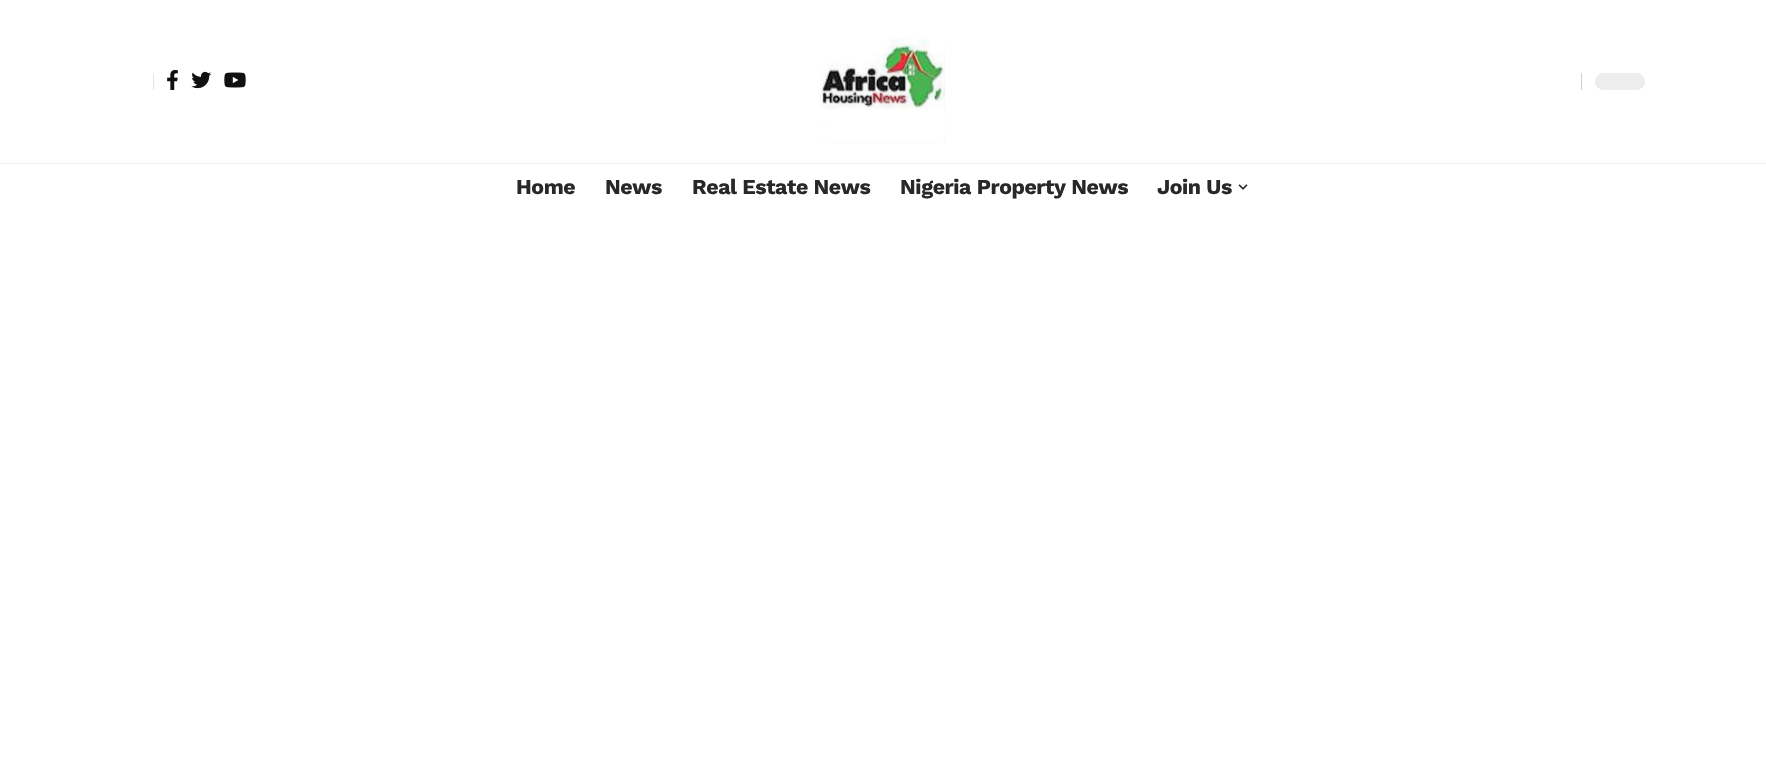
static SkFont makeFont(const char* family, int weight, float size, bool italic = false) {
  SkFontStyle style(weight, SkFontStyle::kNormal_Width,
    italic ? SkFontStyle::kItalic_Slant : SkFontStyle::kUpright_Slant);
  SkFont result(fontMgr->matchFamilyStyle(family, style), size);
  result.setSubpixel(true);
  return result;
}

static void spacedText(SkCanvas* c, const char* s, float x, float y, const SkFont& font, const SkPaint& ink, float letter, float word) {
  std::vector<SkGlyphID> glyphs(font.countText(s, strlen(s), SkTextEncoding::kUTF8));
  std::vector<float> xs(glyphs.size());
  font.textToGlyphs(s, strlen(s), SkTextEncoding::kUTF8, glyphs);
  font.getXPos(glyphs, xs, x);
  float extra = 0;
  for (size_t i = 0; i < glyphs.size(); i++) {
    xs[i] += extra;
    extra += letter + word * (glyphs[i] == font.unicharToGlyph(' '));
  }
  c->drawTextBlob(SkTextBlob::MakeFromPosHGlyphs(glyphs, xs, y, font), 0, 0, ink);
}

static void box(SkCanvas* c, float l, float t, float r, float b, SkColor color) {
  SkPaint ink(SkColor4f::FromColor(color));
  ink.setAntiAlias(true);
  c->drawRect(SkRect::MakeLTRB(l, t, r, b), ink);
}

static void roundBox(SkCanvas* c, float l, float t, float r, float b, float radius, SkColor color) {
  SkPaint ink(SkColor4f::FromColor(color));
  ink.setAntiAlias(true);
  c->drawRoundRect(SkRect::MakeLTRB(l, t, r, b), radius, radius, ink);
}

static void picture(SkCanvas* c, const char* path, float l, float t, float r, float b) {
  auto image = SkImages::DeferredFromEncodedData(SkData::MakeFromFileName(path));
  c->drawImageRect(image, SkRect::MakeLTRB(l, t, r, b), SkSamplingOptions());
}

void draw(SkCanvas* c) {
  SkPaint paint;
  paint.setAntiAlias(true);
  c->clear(0xffffffff);
  box(c, 153, 73, 154, 90, 0xffe4e4e4);
  picture(c, "img_01.png", 167, 70, 178, 90);
  picture(c, "img_02.png", 191, 71, 212, 89);
  picture(c, "img_03.png", 224, 72, 246, 88);
  picture(c, "img_04.png", 820, 38, 945, 144);
  box(c, 1581, 73, 1582, 90, 0xffcfcfcf);
  roundBox(c, 1595, 73, 1645, 90, 8.5f, 0xffededed);
  box(c, 0, 163, 1766, 164, 0xffededed);
  SkFont face1 = makeFont("Work Sans", 700, 21.25f);
  paint.setColor(0xff282828);
  spacedText(c, "Home", 516, 194, face1, paint, -0.4f, 0);
  spacedText(c, "News", 605, 194, face1, paint, -0.4f, 0);
  spacedText(c, "Real Estate News", 692, 194, face1, paint, -0.4f, 0);
  spacedText(c, "Nigeria Property News", 900, 194, face1, paint, -0.4f, 0);
  spacedText(c, "Join Us", 1157, 194, face1, paint, -0.4f, 0);
  picture(c, "img_05.png", 1238, 184, 1248, 190);
}
